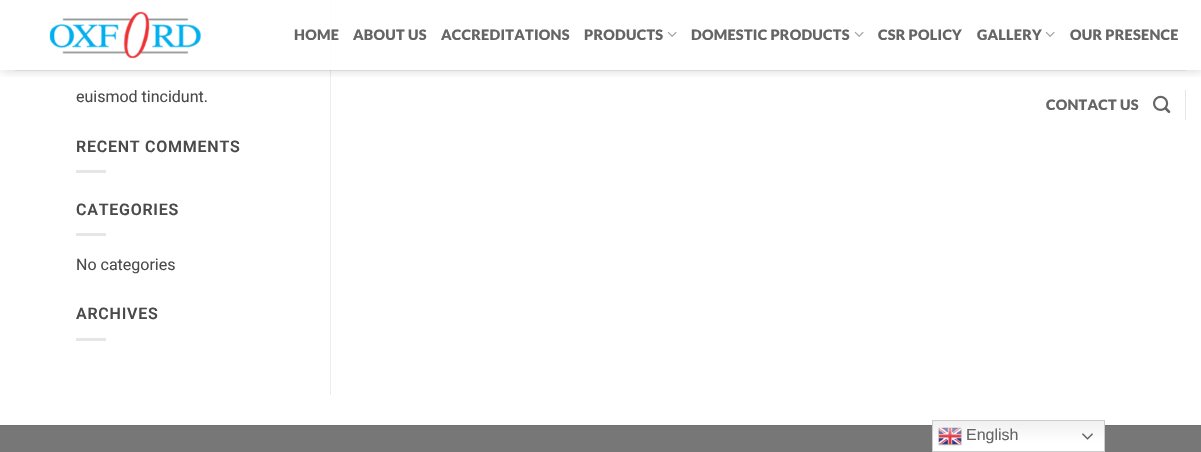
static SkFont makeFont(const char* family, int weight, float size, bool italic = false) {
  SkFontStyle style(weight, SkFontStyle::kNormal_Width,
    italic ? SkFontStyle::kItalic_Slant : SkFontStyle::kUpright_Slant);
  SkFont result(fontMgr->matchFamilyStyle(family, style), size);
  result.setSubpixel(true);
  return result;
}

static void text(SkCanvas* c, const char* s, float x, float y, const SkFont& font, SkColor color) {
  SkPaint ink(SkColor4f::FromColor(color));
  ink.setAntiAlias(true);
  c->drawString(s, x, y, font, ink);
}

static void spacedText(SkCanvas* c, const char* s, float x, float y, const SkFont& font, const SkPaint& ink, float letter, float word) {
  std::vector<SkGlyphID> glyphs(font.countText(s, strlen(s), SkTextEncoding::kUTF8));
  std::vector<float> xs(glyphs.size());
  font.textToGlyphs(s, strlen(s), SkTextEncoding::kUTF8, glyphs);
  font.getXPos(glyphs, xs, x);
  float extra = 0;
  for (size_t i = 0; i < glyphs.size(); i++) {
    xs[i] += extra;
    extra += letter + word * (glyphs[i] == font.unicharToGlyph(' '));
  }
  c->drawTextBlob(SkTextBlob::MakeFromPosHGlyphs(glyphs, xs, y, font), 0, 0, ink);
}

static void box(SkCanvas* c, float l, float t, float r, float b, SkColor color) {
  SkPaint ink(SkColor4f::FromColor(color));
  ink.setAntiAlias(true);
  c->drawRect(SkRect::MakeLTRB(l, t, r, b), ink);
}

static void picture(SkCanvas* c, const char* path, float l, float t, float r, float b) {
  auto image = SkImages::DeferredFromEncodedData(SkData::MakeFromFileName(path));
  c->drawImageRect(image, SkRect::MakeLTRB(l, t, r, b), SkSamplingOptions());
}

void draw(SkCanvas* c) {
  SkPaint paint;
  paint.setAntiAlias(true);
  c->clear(0xffffffff);
  box(c, 330, 0, 331, 395, 0xffececec);
  c->save();
  c->clipRect(SkRect::MakeLTRB(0, 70, 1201, 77));
  paint.setColor(0x26000000);
  paint.setMaskFilter(SkMaskFilter::MakeBlur(kNormal_SkBlurStyle, 5));
  c->drawRect(SkRect::MakeLTRB(1, 1, 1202, 71), paint);
  paint.setMaskFilter(nullptr);
  c->restore();
  box(c, 330, 0, 331, 70, 0xe6ffffff);
  picture(c, "img_01.png", 49, 11, 201, 59);
  SkFont face1 = makeFont("Lato", 900, 14.4f);
  paint.setColor(0xff656565);
  spacedText(c, "HOME", 294, 40, face1, paint, 0.25f, 0);
  spacedText(c, "ABOUT US", 353, 40, face1, paint, 0.25f, 0);
  spacedText(c, "ACCREDITATIONS", 441, 40, face1, paint, 0.25f, 0);
  spacedText(c, "PRODUCTS", 584, 40, face1, paint, 0.25f, 0);
  picture(c, "img_02.png", 667, 31, 677, 37);
  spacedText(c, "DOMESTIC PRODUCTS", 691, 40, face1, paint, 0.25f, 0);
  picture(c, "img_02.png", 854, 31, 864, 37);
  spacedText(c, "CSR POLICY", 878, 40, face1, paint, 0.25f, 0);
  spacedText(c, "GALLERY", 977, 40, face1, paint, 0.25f, 0);
  picture(c, "img_02.png", 1045, 31, 1055, 37);
  spacedText(c, "OUR PRESENCE", 1070, 40, face1, paint, 0.25f, 0);
  spacedText(c, "CONTACT US", 1046, 110, face1, paint, 0.25f, 0);
  picture(c, "img_03.png", 1153, 95, 1171, 113);
  box(c, 1185, 90, 1186, 120, 0xffe6e6e6);
  box(c, 15, 70, 1186, 71, 0x1a4a4a4a);
  SkFont face2 = makeFont("Roboto", 400, 16);
  text(c, "euismod tincidunt.", 76, 102, face2, 0xff4a4a4a);
  SkFont face3 = makeFont("Roboto", 600, 16);
  paint.setColor(0xff4a4a4a);
  spacedText(c, "RECENT COMMENTS", 76, 152, face3, paint, 0.75f, 0);
  box(c, 76, 170, 106, 173, 0xffe6e6e6);
  spacedText(c, "CATEGORIES", 76, 215, face3, paint, 0.75f, 0);
  box(c, 76, 233, 106, 236, 0xffe6e6e6);
  text(c, "No categories", 76, 270, face2, 0xff4a4a4a);
  spacedText(c, "ARCHIVES", 76, 319, face3, paint, 0.75f, 0);
  box(c, 76, 338, 106, 341, 0xffe6e6e6);
  box(c, 0, 426, 1201, 452, 0xff777777);
  box(c, 0, 425, 1201, 426, 0xff717171);
  {
    const SkColor colors[] = {0xffefefef, 0xffffffff};
    const float stops[] = {0, 0.7f};
    const SkPoint ends[] = {{1019, 420}, {1019, 452}};
    paint.setShader(SkGradientShader::MakeLinear(ends, colors, stops, 2, SkTileMode::kClamp));
    paint.setAlpha(255);
  }
  c->drawRect(SkRect::MakeLTRB(933, 421, 1104, 451), paint);
  paint.setStyle(SkPaint::kStroke_Style);
  paint.setStrokeWidth(1);
  paint.setShader(nullptr);
  paint.setColor(0xffcccccc);
  c->drawRect(SkRect::MakeLTRB(932.5f, 420.5f, 1104.5f, 451.5f), paint);
  picture(c, "img_04.png", 938, 427, 962, 446);
  SkFont face4 = makeFont("Liberation Sans", 400, 16);
  text(c, "English", 966, 440, face4, 0xff656565);
  picture(c, "img_05.png", 1082, 433, 1093, 440);
}
